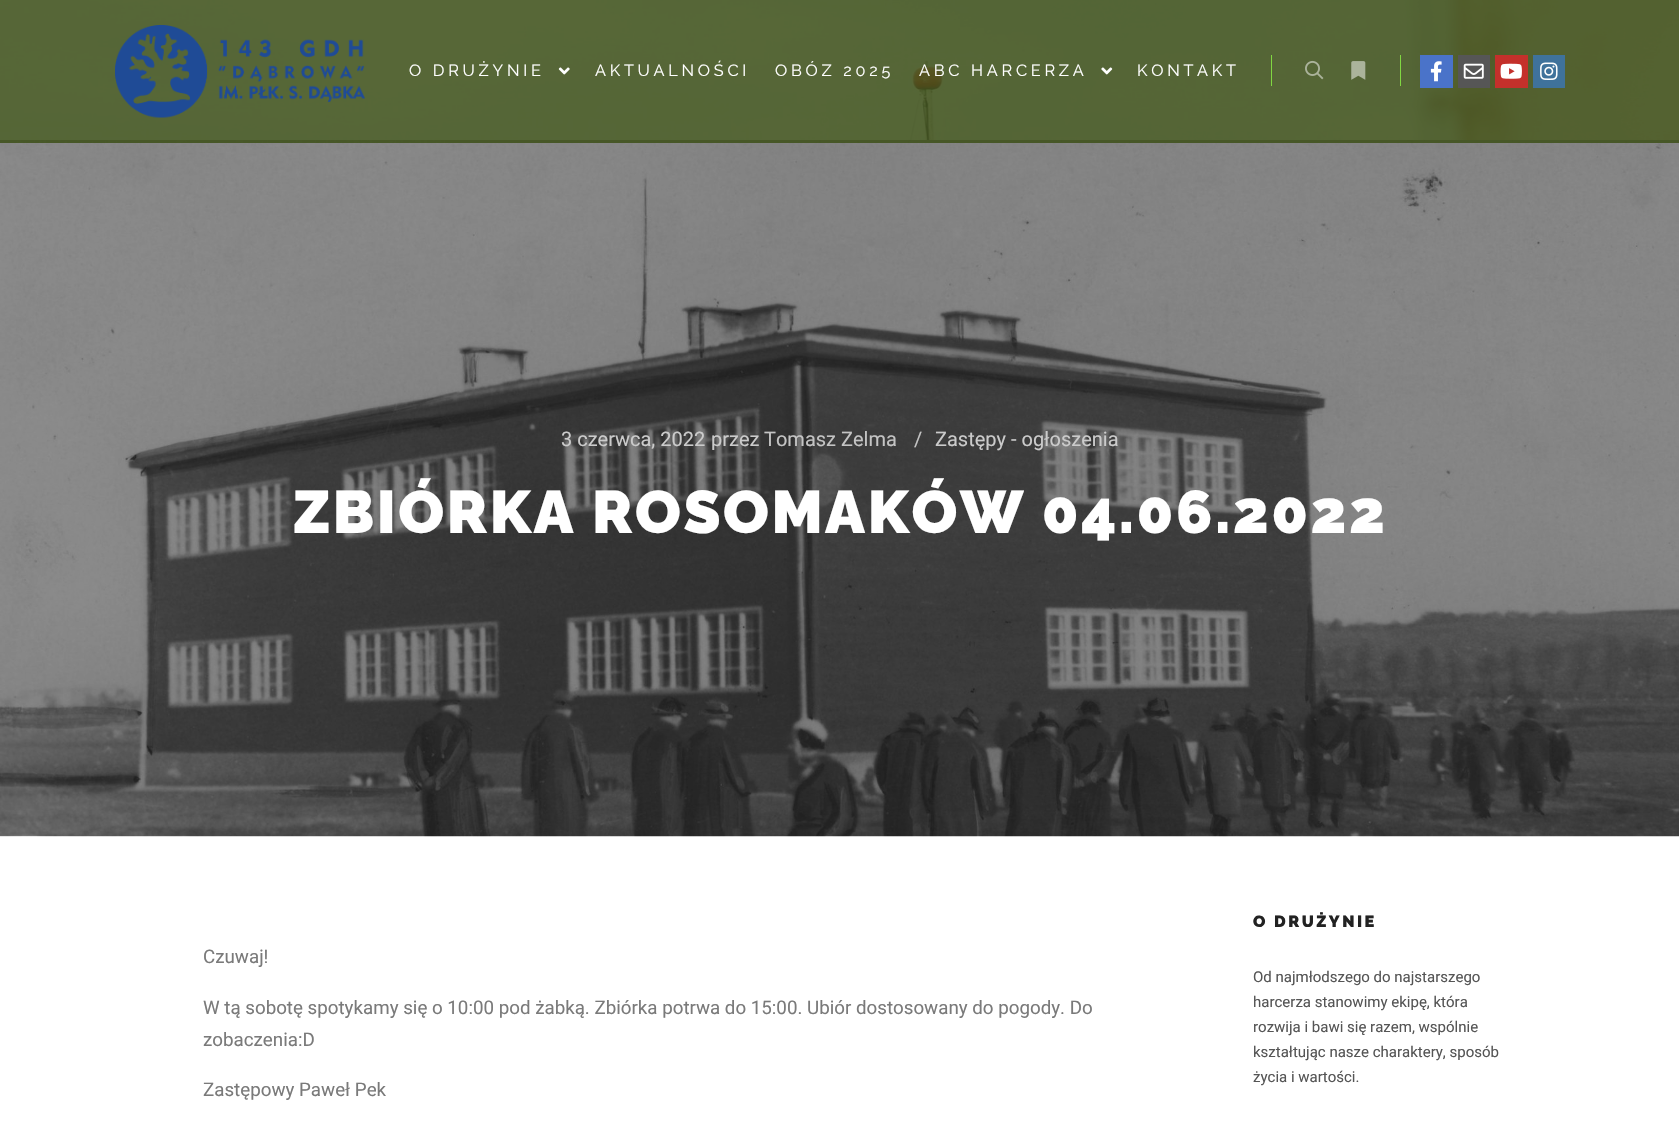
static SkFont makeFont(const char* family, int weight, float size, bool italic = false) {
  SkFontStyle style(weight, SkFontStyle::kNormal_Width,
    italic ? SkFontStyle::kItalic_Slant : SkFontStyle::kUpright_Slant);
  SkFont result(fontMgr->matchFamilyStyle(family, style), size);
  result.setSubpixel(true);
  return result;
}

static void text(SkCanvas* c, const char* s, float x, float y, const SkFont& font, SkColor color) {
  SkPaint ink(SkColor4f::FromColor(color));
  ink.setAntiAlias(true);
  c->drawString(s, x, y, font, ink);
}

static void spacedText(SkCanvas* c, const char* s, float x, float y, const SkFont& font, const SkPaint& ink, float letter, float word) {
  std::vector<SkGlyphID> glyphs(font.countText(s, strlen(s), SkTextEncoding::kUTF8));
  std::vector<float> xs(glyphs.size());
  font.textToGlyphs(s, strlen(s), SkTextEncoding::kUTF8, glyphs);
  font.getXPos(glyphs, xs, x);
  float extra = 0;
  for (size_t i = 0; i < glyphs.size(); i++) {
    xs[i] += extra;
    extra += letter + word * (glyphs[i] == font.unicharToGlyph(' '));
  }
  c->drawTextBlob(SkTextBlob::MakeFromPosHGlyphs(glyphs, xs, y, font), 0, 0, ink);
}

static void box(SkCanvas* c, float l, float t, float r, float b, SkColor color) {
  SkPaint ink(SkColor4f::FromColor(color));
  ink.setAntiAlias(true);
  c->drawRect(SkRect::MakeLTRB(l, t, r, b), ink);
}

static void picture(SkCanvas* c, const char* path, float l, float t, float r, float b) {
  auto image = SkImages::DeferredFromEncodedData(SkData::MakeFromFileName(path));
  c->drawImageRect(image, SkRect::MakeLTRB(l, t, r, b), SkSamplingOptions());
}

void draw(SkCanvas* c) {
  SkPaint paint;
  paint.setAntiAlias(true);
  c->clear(0xffffffff);
  picture(c, "img_01.png", 0, 0, 1679, 140);
  picture(c, "img_11.png", 0, 140, 1679, 837);
  box(c, 0, 0, 1679, 143, 0xdb3d4f17);
  picture(c, "img_02.png", 115, 25, 365, 118);
  SkFont face1 = makeFont("Raleway", 400, 16.25f);
  paint.setColor(0xffffffff);
  spacedText(c, "O DRUŻYNIE", 409, 76, face1, paint, 3.75f, 0);
  picture(c, "img_03.png", 558, 67, 570, 75);
  spacedText(c, "AKTUALNOŚCI", 595, 76, face1, paint, 3.75f, 0);
  spacedText(c, "OBÓZ 2025", 775, 76, face1, paint, 3.75f, 0);
  spacedText(c, "ABC HARCERZA", 919, 76, face1, paint, 3.75f, 0);
  picture(c, "img_04.png", 1101, 67, 1113, 75);
  spacedText(c, "KONTAKT", 1137, 76, face1, paint, 3.75f, 0);
  box(c, 1271, 55, 1272, 86, 0xff81d742);
  picture(c, "img_05.png", 1305, 60, 1324, 80);
  picture(c, "img_06.png", 1351, 61, 1366, 80);
  box(c, 1400, 55, 1401, 86, 0xff81d742);
  box(c, 1420, 55, 1453, 88, 0xff4a73c9);
  picture(c, "img_07.png", 1430, 61, 1442, 82);
  box(c, 1458, 55, 1490, 88, 0xff565656);
  picture(c, "img_08.png", 1463, 63, 1484, 79);
  box(c, 1495, 55, 1528, 88, 0xffc4302b);
  picture(c, "img_09.png", 1500, 63, 1522, 79);
  box(c, 1533, 55, 1565, 88, 0xff3f729b);
  picture(c, "img_10.png", 1540, 62, 1558, 80);
  SkFont face2 = makeFont("Roboto", 400, 20);
  text(c, "3 czerwca, 2022", 561, 446, face2, 0xffcbcbcb);
  text(c, "przez", 711, 446, face2, 0xffcbcbcb);
  text(c, "Tomasz Zelma", 764, 446, face2, 0xffc4c4c4);
  text(c, "/", 914, 446, face2, 0xffc4c4c4);
  text(c, "Zastępy - ogłoszenia", 935, 446, face2, 0xffcbcbcb);
  SkFont face3 = makeFont("Raleway", 900, 60);
  spacedText(c, "ZBIÓRKA ROSOMAKÓW 04.06.2022", 293, 533, face3, paint, 2.5f, 0);
  SkFont face4 = makeFont("Roboto", 400, 18.75f);
  text(c, "Czuwaj!", 203, 963, face4, 0xff7a7a7a);
  text(c, "W tą sobotę spotykamy się o 10:00 pod żabką. Zbiórka potrwa do 15:00. Ubiór dostosowany do pogody. Do", 203, 1014, face4, 0xff7a7a7a);
  text(c, "zobaczenia:D", 203, 1046, face4, 0xff7a7a7a);
  text(c, "Zastępowy Paweł Pek", 203, 1096, face4, 0xff7a7a7a);
  SkFont face5 = makeFont("Raleway", 900, 16.25f);
  paint.setColor(0xff222222);
  spacedText(c, "O DRUŻYNIE", 1253, 927, face5, paint, 2.5f, 0);
  SkFont face6 = makeFont("Roboto", 400, 15);
  text(c, "Od najmłodszego do najstarszego", 1253, 982, face6, 0xff555555);
  text(c, "harcerza stanowimy ekipę, która", 1253, 1007, face6, 0xff555555);
  text(c, "rozwija i bawi się razem, wspólnie", 1253, 1032, face6, 0xff555555);
  text(c, "kształtując nasze charaktery, sposób", 1253, 1057, face6, 0xff555555);
  text(c, "życia i wartości.", 1253, 1082, face6, 0xff555555);
}
